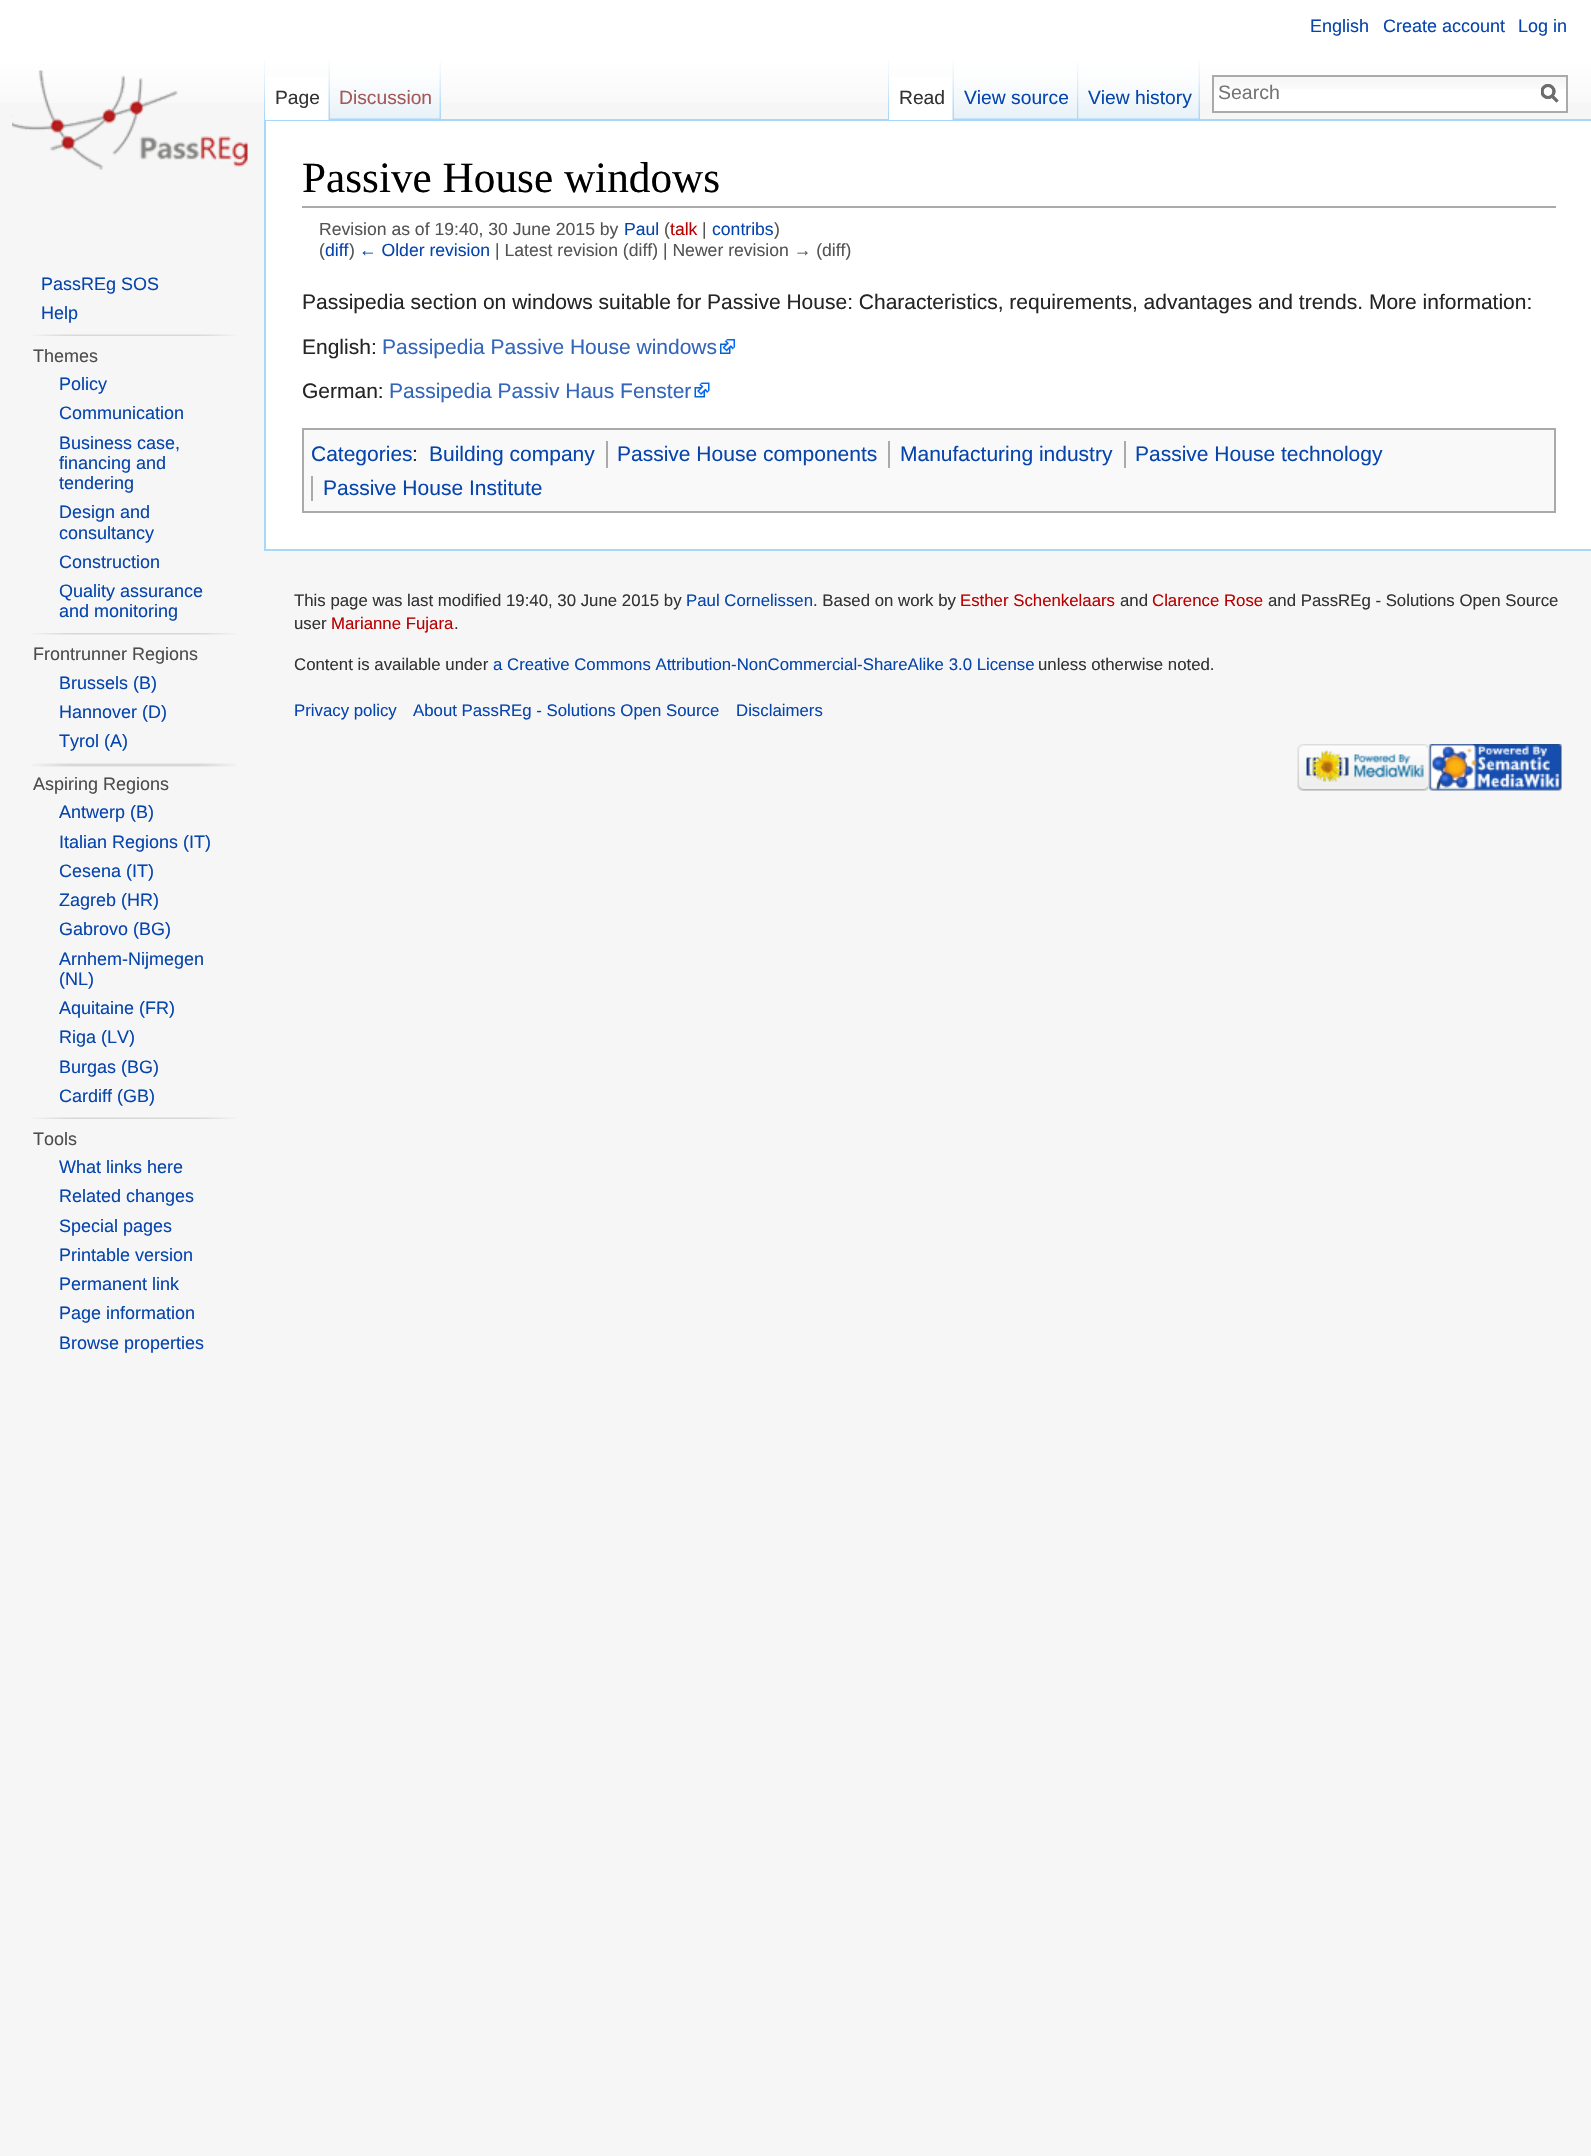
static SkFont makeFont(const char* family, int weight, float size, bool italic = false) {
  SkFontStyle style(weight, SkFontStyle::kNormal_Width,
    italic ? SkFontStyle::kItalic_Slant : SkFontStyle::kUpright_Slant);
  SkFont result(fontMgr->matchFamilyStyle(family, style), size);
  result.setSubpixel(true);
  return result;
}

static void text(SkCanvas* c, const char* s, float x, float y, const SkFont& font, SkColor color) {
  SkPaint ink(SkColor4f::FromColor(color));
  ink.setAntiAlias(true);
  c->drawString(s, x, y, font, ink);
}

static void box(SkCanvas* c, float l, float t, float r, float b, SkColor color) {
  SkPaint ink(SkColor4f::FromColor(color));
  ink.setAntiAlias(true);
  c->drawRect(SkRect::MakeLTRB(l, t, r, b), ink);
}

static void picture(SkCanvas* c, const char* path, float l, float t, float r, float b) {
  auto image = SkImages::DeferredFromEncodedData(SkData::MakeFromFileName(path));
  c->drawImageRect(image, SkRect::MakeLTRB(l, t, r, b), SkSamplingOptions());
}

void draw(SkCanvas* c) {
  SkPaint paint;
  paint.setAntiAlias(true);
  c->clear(0xfff6f6f6);
  {
    const SkColor colors[] = {0xffffffff, 0xfff6f6f6};
    const float stops[] = {0.5f, 1};
    const SkPoint ends[] = {{796, 0}, {796, 120}};
    paint.setShader(SkGradientShader::MakeLinear(ends, colors, stops, 2, SkTileMode::kClamp));
    paint.setAlpha(255);
  }
  c->drawRect(SkRect::MakeLTRB(0, 0, 1591, 103), paint);
  SkFont face1 = makeFont("Liberation Sans", 400, 18);
  text(c, "English", 1310, 32, face1, 0xff0645ad);
  text(c, "Create account", 1383, 32, face1, 0xff0645ad);
  text(c, "Log in", 1518, 32, face1, 0xff0645ad);
  picture(c, "img_01.png", 264, 60, 265, 119);
  box(c, 264, 119, 1591, 121, 0xffa7d7f9);
  box(c, 264, 549, 1591, 551, 0xffa7d7f9);
  box(c, 264, 119, 266, 551, 0xffa7d7f9);
  box(c, 265, 77, 330, 120, 0xffffffff);
  picture(c, "img_02.png", 328, 61, 330, 120);
  SkFont face2 = makeFont("Liberation Sans", 400, 19.25f);
  text(c, "Page", 275, 104, face2, 0xff333333);
  picture(c, "img_03.png", 330, 60, 441, 120);
  picture(c, "img_04.png", 439, 61, 441, 119);
  text(c, "Discussion", 339, 104, face2, 0xffa55858);
  picture(c, "img_01.png", 888, 60, 889, 119);
  box(c, 889, 77, 954, 120, 0xffffffff);
  picture(c, "img_02.png", 952, 61, 954, 120);
  text(c, "Read", 899, 104, face2, 0xff333333);
  picture(c, "img_05.png", 954, 60, 1079, 120);
  picture(c, "img_06.png", 1077, 61, 1079, 120);
  text(c, "View source", 964, 104, face2, 0xff0645ad);
  picture(c, "img_07.png", 1078, 60, 1200, 120);
  picture(c, "img_04.png", 1198, 61, 1200, 119);
  text(c, "View history", 1088, 104, face2, 0xff0645ad);
  box(c, 1214, 89, 1566, 111, 0xffffffff);
  picture(c, "img_08.png", 1214, 77, 1566, 89);
  paint.setStyle(SkPaint::kStroke_Style);
  paint.setStrokeWidth(2);
  paint.setShader(nullptr);
  paint.setColor(0xffaaaaaa);
  c->drawRect(SkRect::MakeLTRB(1213, 76, 1567, 112), paint);
  SkFont face3 = makeFont("Liberation Sans", 400, 19.5f);
  text(c, "Search", 1218, 99, face3, 0xff757575);
  paint.setStrokeWidth(3);
  paint.setColor(0xff6c6c6c);
  c->drawPath(SkPathBuilder().moveTo(1557.5f, 101.5f).lineTo(1551.5f, 95.5f).detach(), paint);
  c->save();
  c->clipRect(SkRect::MakeLTRB(1541, 84, 1559, 104));
  c->drawCircle(1548, 91.5f, 6, paint);
  c->restore();
  c->drawPath(SkPathBuilder().moveTo(1557.5f, 101.5f).lineTo(1551.5f, 95.5f).detach(), paint);
  c->save();
  c->clipRect(SkRect::MakeLTRB(1541, 84, 1559, 104));
  c->drawCircle(1548, 91.5f, 6, paint);
  c->restore();
  picture(c, "img_09.png", 12, 70, 248, 170);
  text(c, "PassREg SOS", 41, 290, face1, 0xff0645ad);
  text(c, "Help", 41, 319, face1, 0xff0645ad);
  picture(c, "img_10.png", 32, 334, 236, 336);
  text(c, "Themes", 33, 362, face1, 0xff4d4d4d);
  text(c, "Policy", 59, 390, face1, 0xff0645ad);
  text(c, "Communication", 59, 419, face1, 0xff0645ad);
  text(c, "Business case,", 59, 449, face1, 0xff0645ad);
  text(c, "financing and", 59, 469, face1, 0xff0645ad);
  text(c, "tendering", 59, 489, face1, 0xff0645ad);
  text(c, "Design and", 59, 518, face1, 0xff0645ad);
  text(c, "consultancy", 59, 539, face1, 0xff0645ad);
  text(c, "Construction", 59, 568, face1, 0xff0645ad);
  text(c, "Quality assurance", 59, 597, face1, 0xff0645ad);
  text(c, "and monitoring", 59, 617, face1, 0xff0645ad);
  picture(c, "img_11.png", 32, 633, 236, 635);
  text(c, "Frontrunner Regions", 33, 660, face1, 0xff4d4d4d);
  text(c, "Brussels (B)", 59, 689, face1, 0xff0645ad);
  text(c, "Hannover (D)", 59, 718, face1, 0xff0645ad);
  text(c, "Tyrol (A)", 59, 747, face1, 0xff0645ad);
  picture(c, "img_12.png", 32, 763, 236, 767);
  text(c, "Aspiring Regions", 33, 790, face1, 0xff4d4d4d);
  text(c, "Antwerp (B)", 59, 818, face1, 0xff0645ad);
  text(c, "Italian Regions (IT)", 59, 848, face1, 0xff0645ad);
  text(c, "Cesena (IT)", 59, 877, face1, 0xff0645ad);
  text(c, "Zagreb (HR)", 59, 906, face1, 0xff0645ad);
  text(c, "Gabrovo (BG)", 59, 935, face1, 0xff0645ad);
  text(c, "Arnhem-Nijmegen", 59, 965, face1, 0xff0645ad);
  text(c, "(NL)", 59, 985, face1, 0xff0645ad);
  text(c, "Aquitaine (FR)", 59, 1014, face1, 0xff0645ad);
  text(c, "Riga (LV)", 59, 1043, face1, 0xff0645ad);
  text(c, "Burgas (BG)", 59, 1073, face1, 0xff0645ad);
  text(c, "Cardiff (GB)", 59, 1102, face1, 0xff0645ad);
  picture(c, "img_10.png", 32, 1117, 236, 1119);
  text(c, "Tools", 33, 1145, face1, 0xff4d4d4d);
  text(c, "What links here", 59, 1173, face1, 0xff0645ad);
  text(c, "Related changes", 59, 1202, face1, 0xff0645ad);
  text(c, "Special pages", 59, 1232, face1, 0xff0645ad);
  text(c, "Printable version", 59, 1261, face1, 0xff0645ad);
  text(c, "Permanent link", 59, 1290, face1, 0xff0645ad);
  text(c, "Page information", 59, 1319, face1, 0xff0645ad);
  text(c, "Browse properties", 59, 1349, face1, 0xff0645ad);
  box(c, 266, 121, 1591, 549, 0xffffffff);
  box(c, 302, 206, 1556, 208, 0xffaaaaaa);
  SkFont face4 = makeFont("Liberation Serif", 400, 43.25f);
  text(c, "Passive House windows", 302, 192, face4, 0xff000000);
  SkFont face5 = makeFont("Liberation Sans", 400, 17.6f);
  text(c, "Revision as of 19:40, 30 June 2015 by", 319, 235, face5, 0xff545454);
  text(c, "Paul", 624, 235, face5, 0xff0645ad);
  text(c, "(", 664, 235, face5, 0xff545454);
  text(c, "talk", 670, 235, face5, 0xffba0000);
  text(c, "|", 702, 235, face5, 0xff545454);
  text(c, "contribs", 712, 235, face5, 0xff0645ad);
  text(c, ")", 774, 235, face5, 0xff545454);
  text(c, "(", 319, 256, face5, 0xff545454);
  text(c, "diff", 325, 256, face5, 0xff0645ad);
  text(c, ")", 349, 256, face5, 0xff545454);
  text(c, "← Older revision", 359, 256, face5, 0xff0645ad);
  text(c, "| Latest revision (diff) | Newer revision → (diff)", 495, 256, face5, 0xff545454);
  SkFont face6 = makeFont("Liberation Sans", 400, 21);
  text(c, "Passipedia section on windows suitable for Passive House: Characteristics, requirements, advantages and trends. More information:", 302, 309, face6, 0xff252525);
  text(c, "English:", 302, 354, face6, 0xff252525);
  text(c, "Passipedia Passive House windows", 382, 354, face6, 0xff3366bb);
  picture(c, "img_13.png", 720, 339, 735, 354);
  text(c, "German:", 302, 398, face6, 0xff252525);
  text(c, "Passipedia Passiv Haus Fenster", 389, 398, face6, 0xff3366bb);
  picture(c, "img_14.png", 694, 382, 710, 398);
  paint.setStyle(SkPaint::kFill_Style);
  paint.setColor(0xfff9f9f9);
  c->drawRect(SkRect::MakeLTRB(303, 429, 1555, 512), paint);
  paint.setStyle(SkPaint::kStroke_Style);
  paint.setStrokeWidth(2);
  paint.setColor(0xffaaaaaa);
  c->drawRect(SkRect::MakeLTRB(303, 429, 1555, 512), paint);
  text(c, "Categories", 311, 461, face6, 0xff0645ad);
  text(c, "Building company", 429, 461, face6, 0xff0645ad);
  box(c, 606, 441, 608, 468, 0xffaaaaaa);
  text(c, "Passive House components", 617, 461, face6, 0xff0645ad);
  box(c, 888, 441, 890, 468, 0xffaaaaaa);
  text(c, "Manufacturing industry", 900, 461, face6, 0xff0645ad);
  box(c, 1124, 441, 1126, 468, 0xffaaaaaa);
  text(c, "Passive House technology", 1135, 461, face6, 0xff0645ad);
  box(c, 311, 476, 313, 501, 0xffaaaaaa);
  text(c, "Passive House Institute", 323, 495, face6, 0xff0645ad);
  text(c, ":", 412, 461, face6, 0xff252525);
  SkFont face7 = makeFont("Liberation Sans", 400, 16.8f);
  text(c, "This page was last modified 19:40, 30 June 2015 by", 294, 606, face7, 0xff333333);
  text(c, "Paul Cornelissen", 686, 606, face7, 0xff0645ad);
  text(c, ". Based on work by", 813, 606, face7, 0xff333333);
  text(c, "Esther Schenkelaars", 960, 606, face7, 0xffba0000);
  text(c, "and", 1120, 606, face7, 0xff333333);
  text(c, "Clarence Rose", 1152, 606, face7, 0xffba0000);
  text(c, "and PassREg - Solutions Open Source", 1268, 606, face7, 0xff333333);
  text(c, "user", 294, 629, face7, 0xff333333);
  text(c, "Marianne Fujara", 331, 629, face7, 0xffba0000);
  text(c, ".", 454, 629, face7, 0xff333333);
  text(c, "Content is available under", 294, 670, face7, 0xff333333);
  text(c, "a Creative Commons Attribution-NonCommercial-ShareAlike 3.0 License", 493, 670, face7, 0xff0645ad);
  text(c, "unless otherwise noted.", 1038, 670, face7, 0xff333333);
  text(c, "Privacy policy", 294, 716, face7, 0xff0645ad);
  text(c, "About PassREg - Solutions Open Source", 413, 716, face7, 0xff0645ad);
  text(c, "Disclaimers", 736, 716, face7, 0xff0645ad);
  picture(c, "img_15.png", 1297, 744, 1430, 791);
  picture(c, "img_16.png", 1429, 744, 1562, 791);
}
